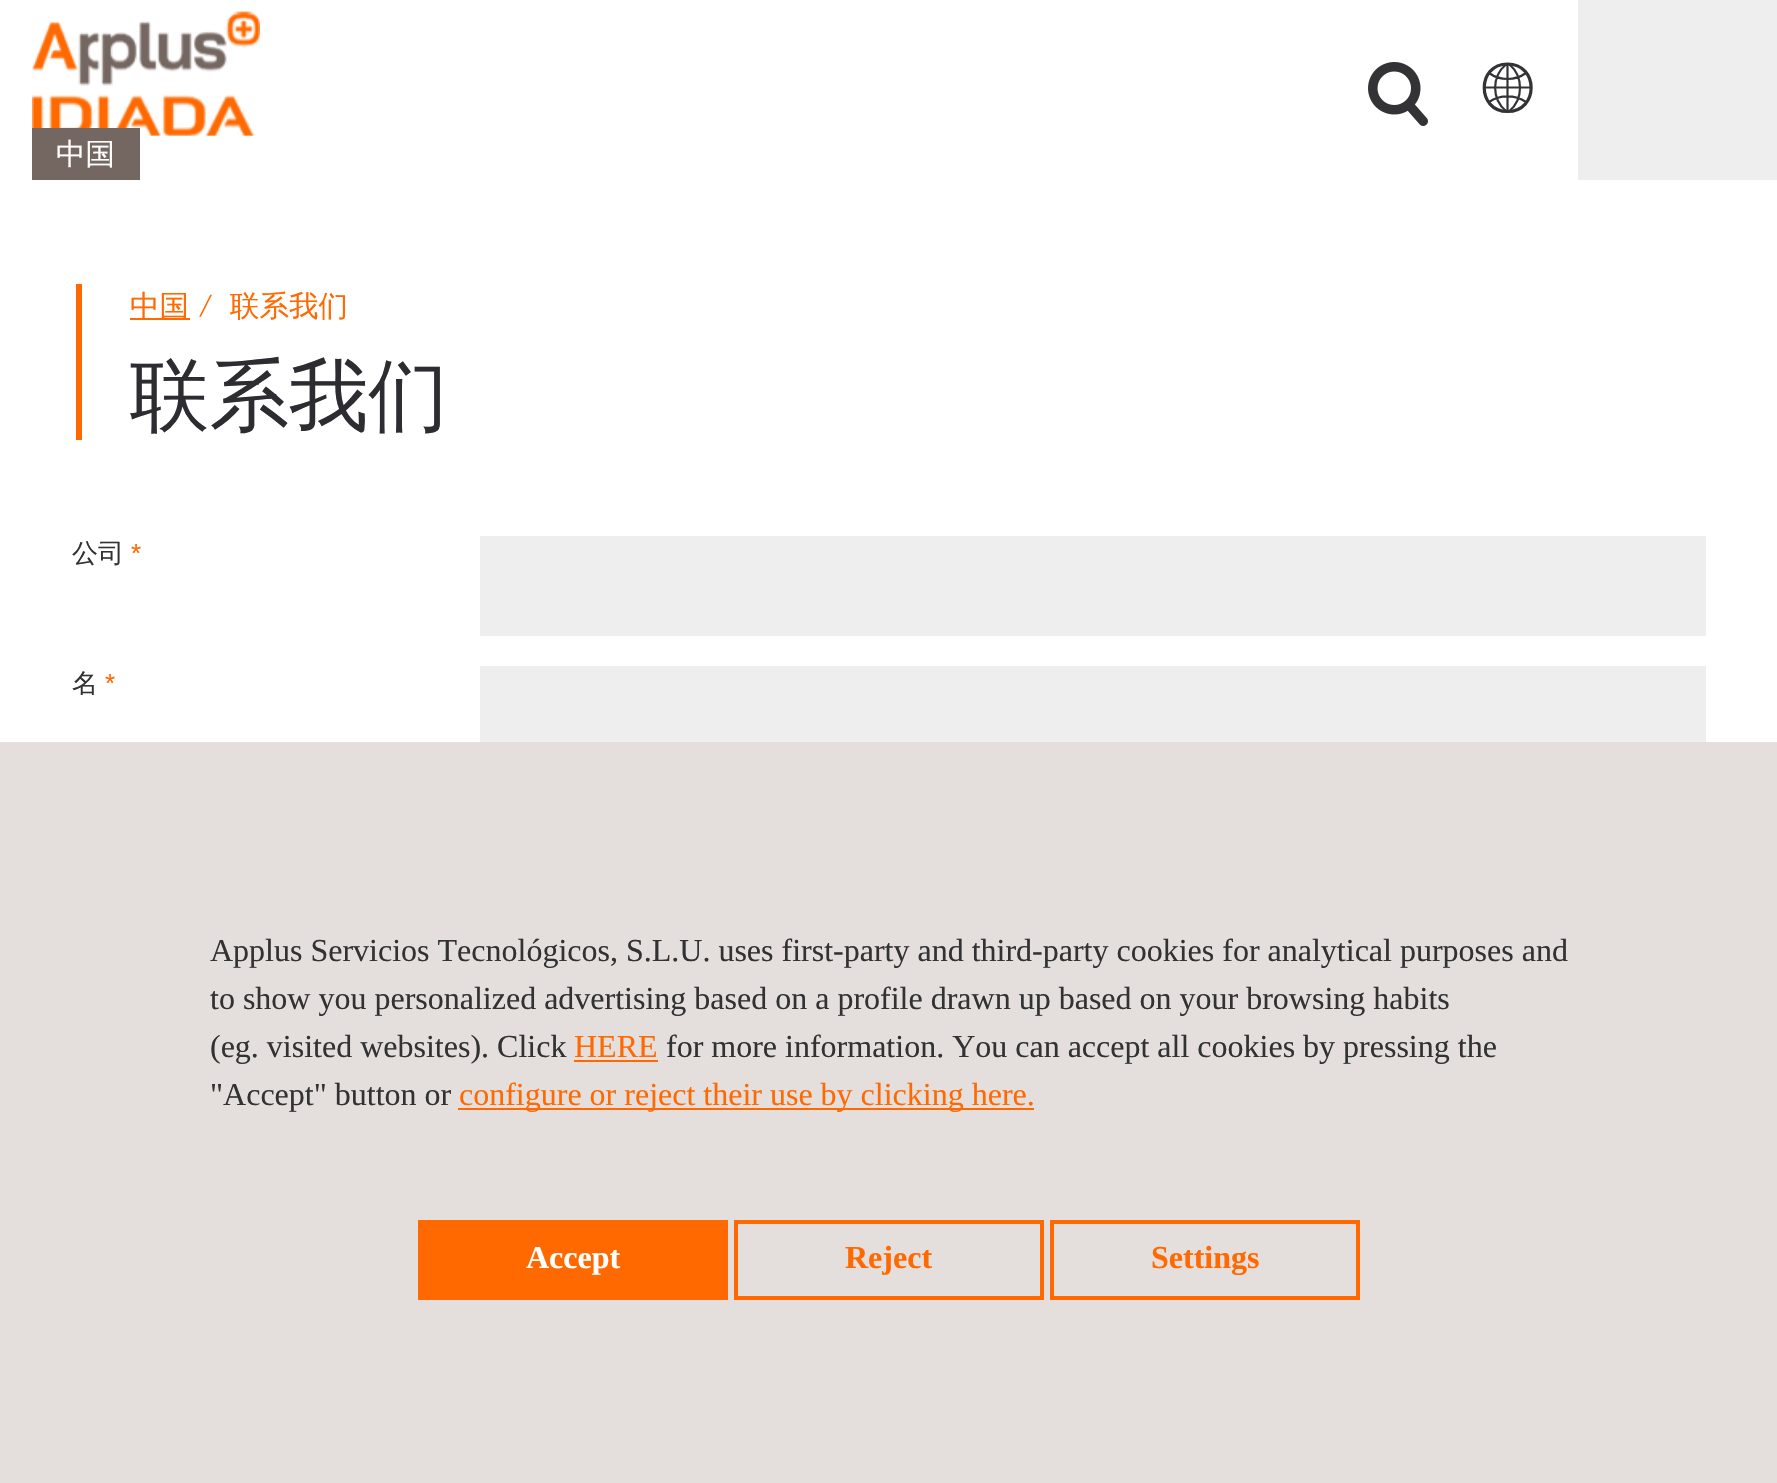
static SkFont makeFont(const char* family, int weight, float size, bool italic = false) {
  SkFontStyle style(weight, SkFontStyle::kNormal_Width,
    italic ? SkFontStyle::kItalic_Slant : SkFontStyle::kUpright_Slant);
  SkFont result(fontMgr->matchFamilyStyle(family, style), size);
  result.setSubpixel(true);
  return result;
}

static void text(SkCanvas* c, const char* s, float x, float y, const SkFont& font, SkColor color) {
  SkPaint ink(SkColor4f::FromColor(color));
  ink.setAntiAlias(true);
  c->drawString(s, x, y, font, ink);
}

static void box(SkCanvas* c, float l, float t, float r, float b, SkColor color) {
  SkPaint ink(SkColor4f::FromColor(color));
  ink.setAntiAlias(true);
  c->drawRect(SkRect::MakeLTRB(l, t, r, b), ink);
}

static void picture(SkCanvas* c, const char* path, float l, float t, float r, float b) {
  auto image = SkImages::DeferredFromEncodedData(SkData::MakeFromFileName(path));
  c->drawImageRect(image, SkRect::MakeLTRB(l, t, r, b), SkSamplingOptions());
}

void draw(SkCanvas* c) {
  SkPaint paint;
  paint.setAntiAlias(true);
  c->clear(0xffffffff);
  picture(c, "img_01.png", 1368, 62, 1428, 126);
  paint.setStyle(SkPaint::kStroke_Style);
  paint.setStrokeWidth(3.2f);
  paint.setColor(0xff333335);
  c->drawPath(SkPathBuilder().moveTo(1507.5f, 64).cubicTo(1476.5f, 64, 1476.5f, 111.5f, 1507.5f, 111.5f).cubicTo(1539, 111.5f, 1539, 64, 1507.5f, 64).close().detach(), paint);
  paint.setStrokeWidth(2.2f);
  c->drawPath(SkPathBuilder().moveTo(1507.5f, 64).lineTo(1507.5f, 111.5f).moveTo(1531.5f, 87.5f).lineTo(1484, 87.5f).moveTo(1489, 73).cubicTo(1500, 81, 1515, 81, 1526, 73).moveTo(1526, 102).cubicTo(1515, 94.5f, 1500, 94.5f, 1489, 102).moveTo(1506, 64.5f).cubicTo(1491.5f, 76.5f, 1491.5f, 99, 1506, 111).moveTo(1509.5f, 111).cubicTo(1523.5f, 99, 1523.5f, 76.5f, 1509.5f, 64.5f).detach(), paint);
  box(c, 1578, 0, 1777, 180, 0xffeeeeee);
  picture(c, "img_02.png", 32, 11, 260, 136);
  box(c, 32, 128, 140, 180, 0xff746660);
  SkFont face1 = makeFont("WenQuanYi Zen Hei", 500, 29.5f);
  text(c, "中国", 56, 164, face1, 0xffffffff);
  box(c, 76, 284, 82, 440, 0xffff6900);
  box(c, 130, 318, 190, 320, 0xffff6900);
  text(c, "中国", 130, 316, face1, 0xffff6900);
  SkFont face2 = makeFont("Bai Jamjuree", 300, 29.5f);
  text(c, "/", 198, 316, face2, 0xffff6900);
  text(c, "联系我们", 230, 316, face1, 0xffff6900);
  SkFont face3 = makeFont("WenQuanYi Zen Hei", 500, 79.5f);
  text(c, "联系我们", 130, 423, face3, 0xff2c2c31);
  SkFont face4 = makeFont("WenQuanYi Zen Hei", 500, 26);
  text(c, "公司", 72, 562, face4, 0xff323233);
  SkFont face5 = makeFont("Liberation Sans", 400, 26);
  text(c, "*", 131, 562, face5, 0xffff6900);
  box(c, 480, 536, 1706, 636, 0xffeeeeee);
  text(c, "名", 72, 692, face4, 0xff323233);
  text(c, "*", 105, 692, face5, 0xffff6900);
  box(c, 480, 666, 1706, 742, 0xffeeeeee);
  box(c, 0, 742, 1777, 1483, 0xffe4dedc);
  SkFont face6 = makeFont("Liberation Serif", 400, 32);
  text(c, "Applus Servicios Tecnológicos, S.L.U. uses first-party and third-party cookies for analytical purposes and", 210, 961, face6, 0xff323233);
  text(c, "to show you personalized advertising based on a profile drawn up based on your browsing habits", 210, 1009, face6, 0xff323233);
  text(c, "(eg. visited websites). Click", 210, 1057, face6, 0xff323233);
  text(c, "HERE", 574, 1057, face6, 0xffff6900);
  box(c, 574, 1060, 658, 1062, 0xfffd6900);
  text(c, "for more information. You can accept all cookies by pressing the", 666, 1057, face6, 0xff323233);
  text(c, "\"Accept\" button or", 210, 1105, face6, 0xff323233);
  box(c, 458, 1108, 1034, 1110, 0xfffd6900);
  text(c, "configure or reject their use by clicking here.", 459, 1105, face6, 0xffff6900);
  box(c, 418, 1220, 728, 1300, 0xffff6900);
  SkFont face7 = makeFont("Liberation Serif", 700, 32);
  text(c, "Accept", 526, 1268, face7, 0xffffffff);
  paint.setStrokeWidth(4);
  paint.setColor(0xffff6900);
  c->drawRect(SkRect::MakeLTRB(736, 1222, 1042, 1298), paint);
  text(c, "Reject", 845, 1268, face7, 0xffff6900);
  c->drawRect(SkRect::MakeLTRB(1052, 1222, 1358, 1298), paint);
  text(c, "Settings", 1151, 1268, face7, 0xffff6900);
}
